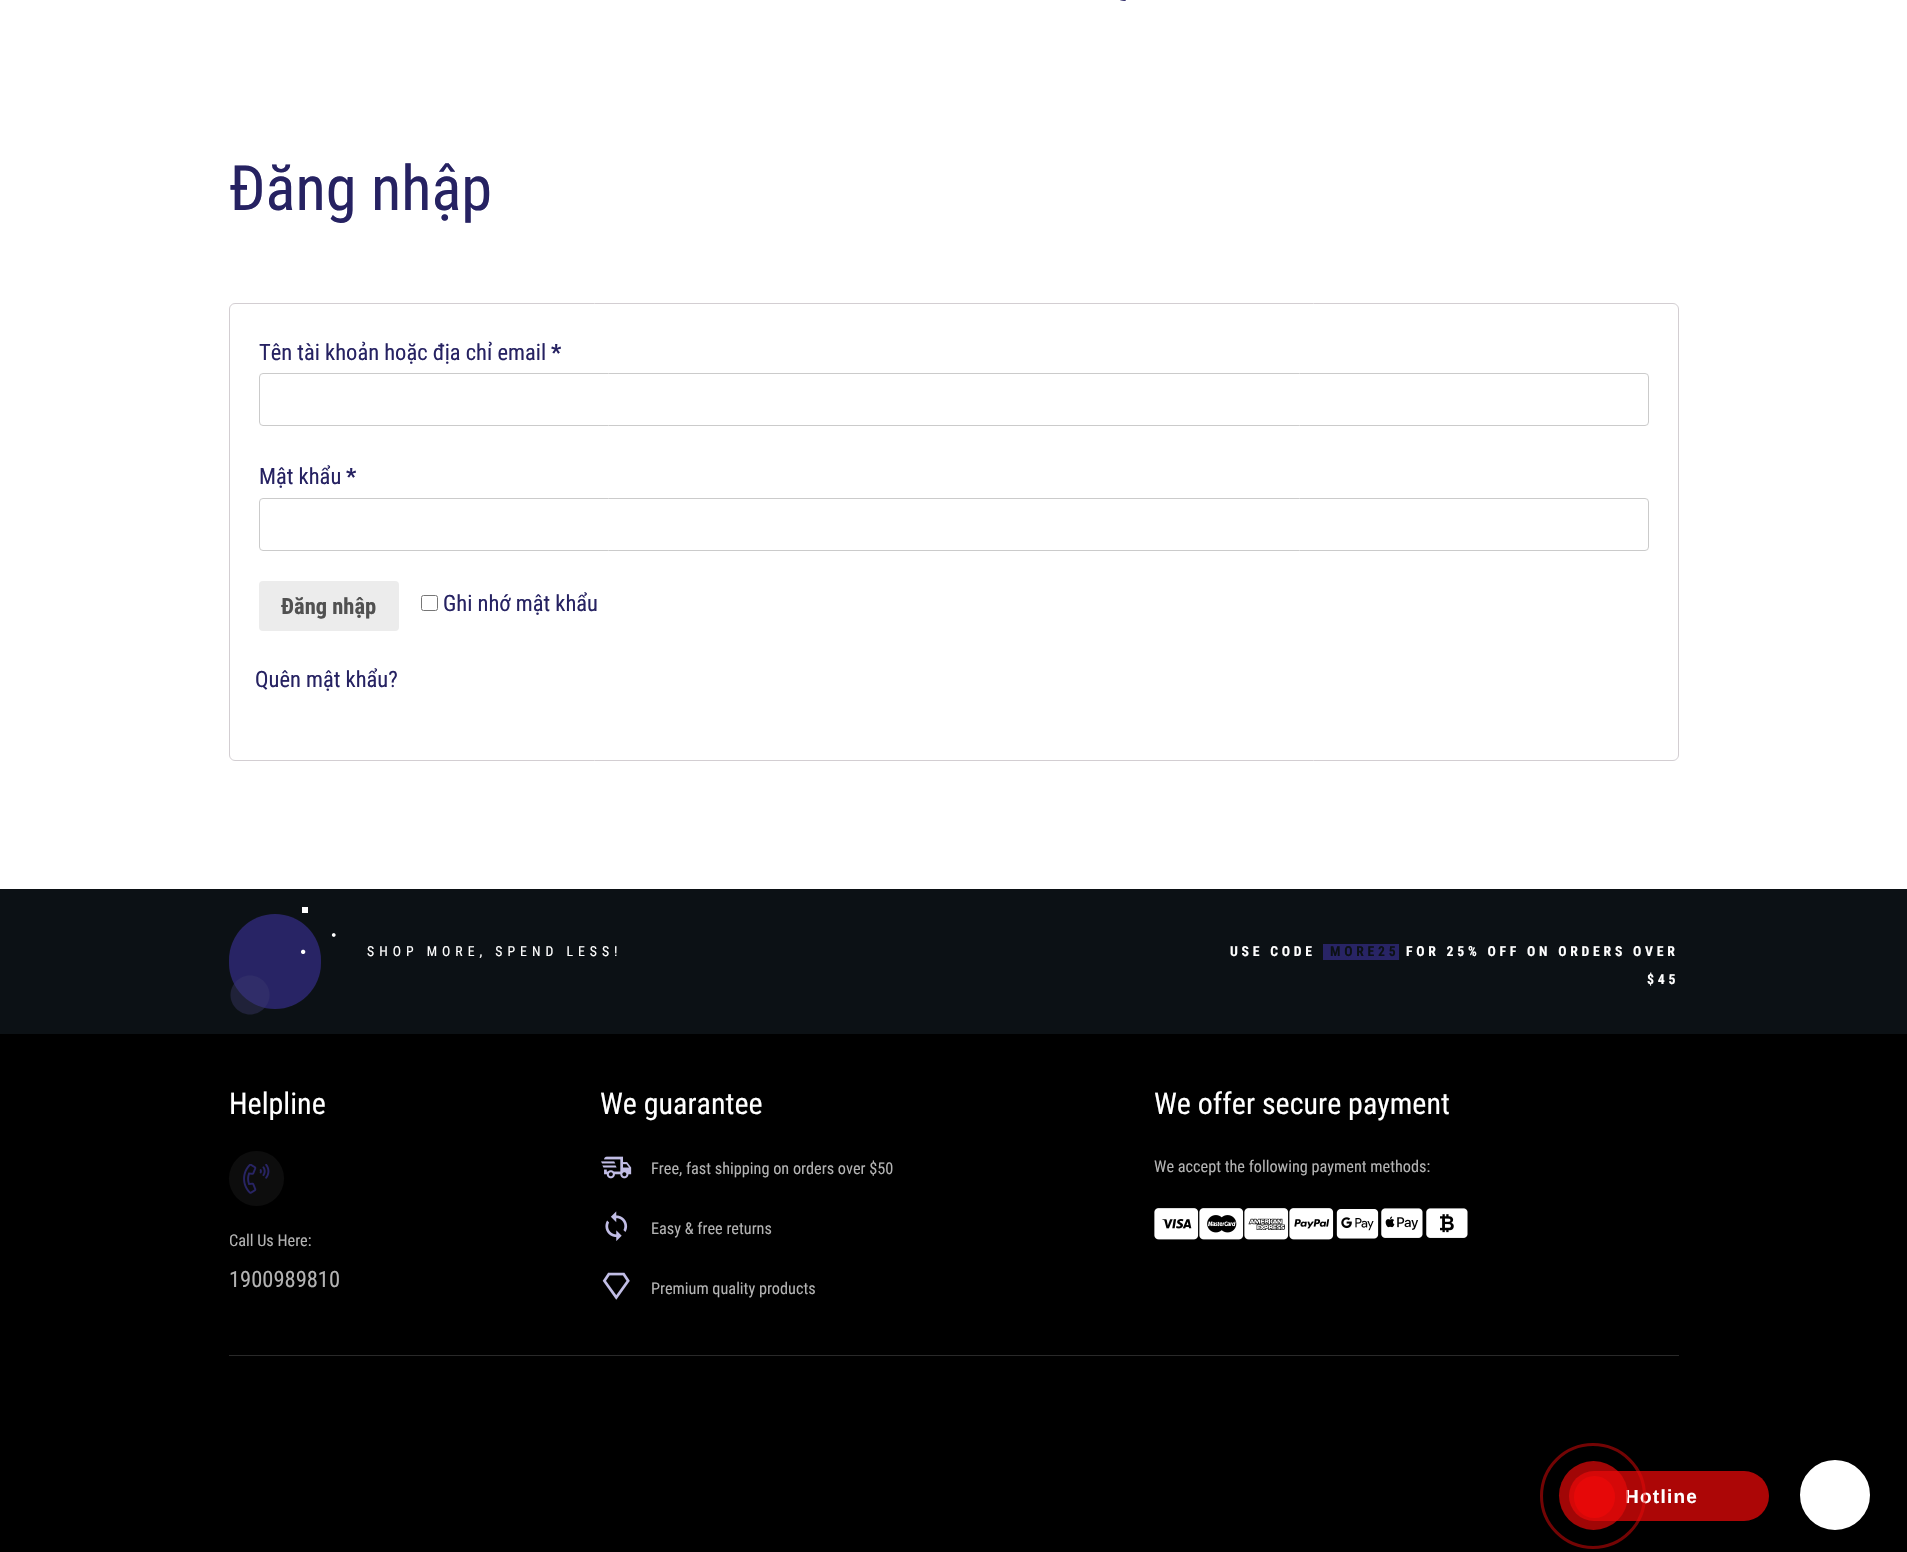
static SkFont makeFont(const char* family, int weight, float size, bool italic = false) {
  SkFontStyle style(weight, SkFontStyle::kNormal_Width,
    italic ? SkFontStyle::kItalic_Slant : SkFontStyle::kUpright_Slant);
  SkFont result(fontMgr->matchFamilyStyle(family, style), size);
  result.setSubpixel(true);
  return result;
}

static void text(SkCanvas* c, const char* s, float x, float y, const SkFont& font, SkColor color) {
  SkPaint ink(SkColor4f::FromColor(color));
  ink.setAntiAlias(true);
  c->drawString(s, x, y, font, ink);
}

static void spacedText(SkCanvas* c, const char* s, float x, float y, const SkFont& font, const SkPaint& ink, float letter, float word) {
  std::vector<SkGlyphID> glyphs(font.countText(s, strlen(s), SkTextEncoding::kUTF8));
  std::vector<float> xs(glyphs.size());
  font.textToGlyphs(s, strlen(s), SkTextEncoding::kUTF8, glyphs);
  font.getXPos(glyphs, xs, x);
  float extra = 0;
  for (size_t i = 0; i < glyphs.size(); i++) {
    xs[i] += extra;
    extra += letter + word * (glyphs[i] == font.unicharToGlyph(' '));
  }
  c->drawTextBlob(SkTextBlob::MakeFromPosHGlyphs(glyphs, xs, y, font), 0, 0, ink);
}

static void box(SkCanvas* c, float l, float t, float r, float b, SkColor color) {
  SkPaint ink(SkColor4f::FromColor(color));
  ink.setAntiAlias(true);
  c->drawRect(SkRect::MakeLTRB(l, t, r, b), ink);
}

static void roundBox(SkCanvas* c, float l, float t, float r, float b, float radius, SkColor color) {
  SkPaint ink(SkColor4f::FromColor(color));
  ink.setAntiAlias(true);
  c->drawRoundRect(SkRect::MakeLTRB(l, t, r, b), radius, radius, ink);
}

static void picture(SkCanvas* c, const char* path, float l, float t, float r, float b) {
  auto image = SkImages::DeferredFromEncodedData(SkData::MakeFromFileName(path));
  c->drawImageRect(image, SkRect::MakeLTRB(l, t, r, b), SkSamplingOptions());
}

void draw(SkCanvas* c) {
  SkPaint paint;
  paint.setAntiAlias(true);
  c->clear(0xffffffff);
  picture(c, "img_01.png", 1120, 0, 1126, 1);
  SkFont face1 = makeFont("Roboto Condensed", 400, 62.5f);
  text(c, "Đăng nhập", 229, 210, face1, 0xff262262);
  paint.setStyle(SkPaint::kStroke_Style);
  paint.setStrokeWidth(1);
  paint.setColor(0xffd3ced2);
  c->drawRoundRect(SkRect::MakeLTRB(229.5f, 303.5f, 1678.5f, 760.5f), 5.5f, 5.5f, paint);
  SkFont face2 = makeFont("Roboto Condensed", 400, 22.5f);
  text(c, "Tên tài khoản hoặc địa chỉ email", 259, 360, face2, 0xff262262);
  SkFont face3 = makeFont("Roboto Condensed", 700, 22.5f);
  text(c, "*", 551, 360, face3, 0xff262262);
  paint.setColor(0xffcbcbcb);
  c->drawRoundRect(SkRect::MakeLTRB(259.5f, 373.5f, 1648.5f, 425.5f), 3.5f, 3.5f, paint);
  text(c, "Mật khẩu", 259, 484, face2, 0xff262262);
  text(c, "*", 346, 484, face3, 0xff262262);
  c->drawRoundRect(SkRect::MakeLTRB(259.5f, 498.5f, 1648.5f, 550.5f), 3.5f, 3.5f, paint);
  roundBox(c, 259, 581, 399, 631, 4, 0xffececec);
  text(c, "Đăng nhập", 281, 614, face3, 0xff515151);
  paint.setColor(0xff767676);
  c->drawRoundRect(SkRect::MakeLTRB(421.5f, 595.5f, 437.5f, 610.5f), 2, 2, paint);
  text(c, "Ghi nhớ mật khẩu", 443, 611, face2, 0xff262262);
  text(c, "Quên mật khẩu?", 255, 687, face2, 0xff262262);
  box(c, 0, 889, 1907, 1034, 0xff0c1115);
  box(c, 302, 907, 308, 913, 0xffffffff);
  picture(c, "img_02.png", 331, 933, 336, 937);
  roundBox(c, 229, 914, 321, 1009, 46, 0xff282465);
  picture(c, "img_03.png", 301, 949, 306, 954);
  paint.setStyle(SkPaint::kFill_Style);
  paint.setColor(0x663d3a6e);
  c->drawPath(SkPathBuilder().moveTo(250, 975.5f).cubicTo(239.5f, 975.5f, 230.5f, 984.5f, 230.5f, 995).cubicTo(230.5f, 1005.5f, 239.5f, 1014.5f, 250, 1014.5f).cubicTo(260.5f, 1014.5f, 269.5f, 1005.5f, 269.5f, 995).cubicTo(269.5f, 984.5f, 260.5f, 975.5f, 250, 975.5f).close().detach(), paint);
  SkFont face4 = makeFont("Roboto Condensed", 400, 13.75f);
  paint.setColor(0xffffffff);
  spacedText(c, "SHOP MORE, SPEND LESS!", 367, 956, face4, paint, 5, 0);
  SkFont face5 = makeFont("Roboto Condensed", 700, 13.75f);
  spacedText(c, "USE CODE", 1230, 956, face5, paint, 3.75f, 0);
  box(c, 1323, 944, 1399, 960, 0xff282465);
  paint.setColor(0xff0c1115);
  spacedText(c, "MORE25", 1330, 956, face5, paint, 3.75f, 0);
  paint.setColor(0xffffffff);
  spacedText(c, "FOR 25% OFF ON ORDERS OVER", 1406, 956, face5, paint, 3.75f, 0);
  spacedText(c, "$45", 1647, 984, face5, paint, 3.75f, 0);
  box(c, 0, 1034, 1907, 1552, 0xff000000);
  SkFont face6 = makeFont("Roboto Condensed", 400, 30);
  text(c, "Helpline", 229, 1114, face6, 0xffffffff);
  paint.setColor(0xff0d0d0d);
  c->drawCircle(256.5f, 1178.5f, 27.5f, paint);
  picture(c, "img_04.png", 243, 1164, 270, 1194);
  SkFont face7 = makeFont("Roboto Condensed", 400, 16.25f);
  text(c, "Call Us Here:", 229, 1246, face7, 0xffb3b3b3);
  text(c, "1900989810", 229, 1287, face2, 0xffb3b3b3);
  text(c, "We guarantee", 600, 1114, face6, 0xffffffff);
  picture(c, "img_05.png", 601, 1156, 632, 1179);
  text(c, "Free, fast shipping on orders over $50", 651, 1174, face7, 0xffb3b3b3);
  picture(c, "img_06.png", 605, 1211, 628, 1241);
  text(c, "Easy & free returns", 651, 1234, face7, 0xffb3b3b3);
  picture(c, "img_07.png", 602, 1272, 630, 1300);
  text(c, "Premium quality products", 651, 1294, face7, 0xffb3b3b3);
  text(c, "We offer secure payment", 1154, 1114, face6, 0xffffffff);
  text(c, "We accept the following payment methods:", 1154, 1172, face7, 0xffb3b3b3);
  picture(c, "img_08.png", 1154, 1208, 1199, 1240);
  picture(c, "img_09.png", 1199, 1208, 1244, 1240);
  picture(c, "img_10.png", 1244, 1208, 1289, 1240);
  picture(c, "img_11.png", 1289, 1208, 1334, 1240);
  picture(c, "img_12.png", 1336, 1209, 1379, 1239);
  picture(c, "img_13.png", 1381, 1208, 1423, 1238);
  picture(c, "img_14.png", 1426, 1208, 1468, 1238);
  box(c, 229, 1355, 1679, 1356, 0xff292929);
  roundBox(c, 1569, 1471, 1769, 1521, 25, 0xbfe60808);
  SkFont face8 = makeFont("Liberation Sans", 700, 19);
  paint.setColor(0xffffffff);
  spacedText(c, "Hotline", 1625, 1503, face8, paint, 1.25f, 0);
  paint.setStyle(SkPaint::kStroke_Style);
  paint.setStrokeWidth(3);
  paint.setColor(0x80e60808);
  c->drawCircle(1593, 1496, 51.5f, paint);
  paint.setStyle(SkPaint::kFill_Style);
  paint.setColor(0xb3e60808);
  c->drawCircle(1593.5f, 1495.5f, 34.5f, paint);
  roundBox(c, 1574, 1476, 1615, 1518, 20.5f, 0xffe60808);
  paint.setColor(0xffffffff);
  c->drawCircle(1835, 1495, 32, paint);
  paint.setStyle(SkPaint::kStroke_Style);
  paint.setStrokeWidth(6);
  c->drawCircle(1835, 1495, 32, paint);
}
